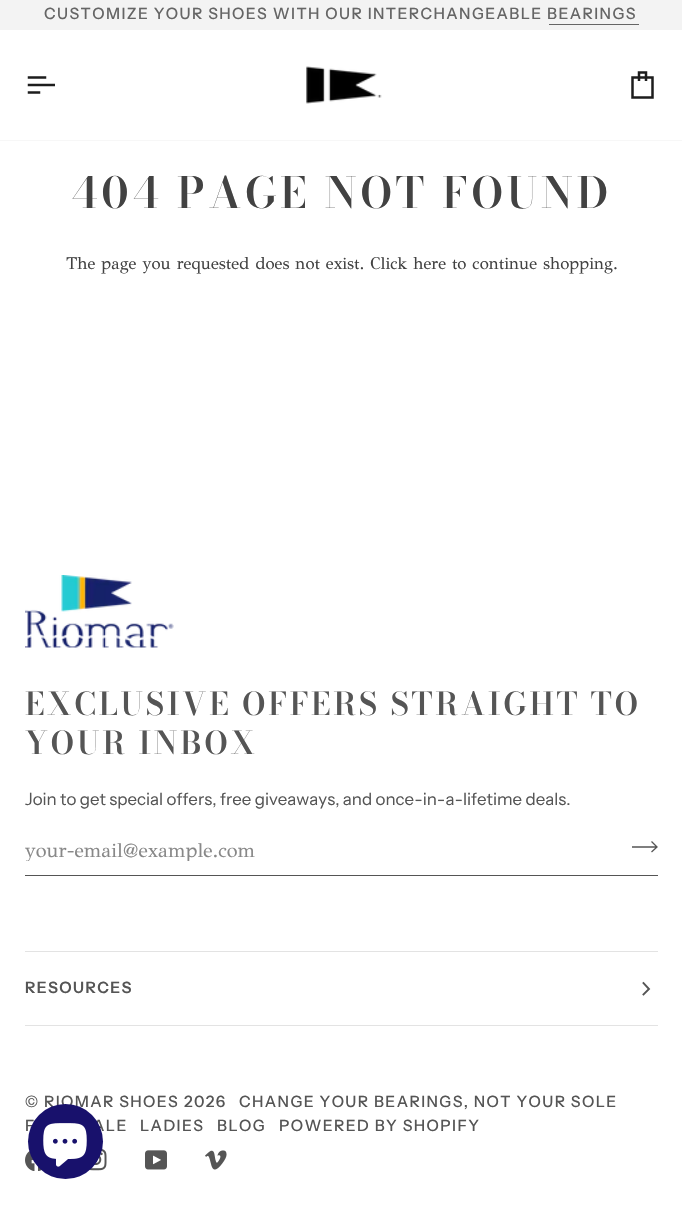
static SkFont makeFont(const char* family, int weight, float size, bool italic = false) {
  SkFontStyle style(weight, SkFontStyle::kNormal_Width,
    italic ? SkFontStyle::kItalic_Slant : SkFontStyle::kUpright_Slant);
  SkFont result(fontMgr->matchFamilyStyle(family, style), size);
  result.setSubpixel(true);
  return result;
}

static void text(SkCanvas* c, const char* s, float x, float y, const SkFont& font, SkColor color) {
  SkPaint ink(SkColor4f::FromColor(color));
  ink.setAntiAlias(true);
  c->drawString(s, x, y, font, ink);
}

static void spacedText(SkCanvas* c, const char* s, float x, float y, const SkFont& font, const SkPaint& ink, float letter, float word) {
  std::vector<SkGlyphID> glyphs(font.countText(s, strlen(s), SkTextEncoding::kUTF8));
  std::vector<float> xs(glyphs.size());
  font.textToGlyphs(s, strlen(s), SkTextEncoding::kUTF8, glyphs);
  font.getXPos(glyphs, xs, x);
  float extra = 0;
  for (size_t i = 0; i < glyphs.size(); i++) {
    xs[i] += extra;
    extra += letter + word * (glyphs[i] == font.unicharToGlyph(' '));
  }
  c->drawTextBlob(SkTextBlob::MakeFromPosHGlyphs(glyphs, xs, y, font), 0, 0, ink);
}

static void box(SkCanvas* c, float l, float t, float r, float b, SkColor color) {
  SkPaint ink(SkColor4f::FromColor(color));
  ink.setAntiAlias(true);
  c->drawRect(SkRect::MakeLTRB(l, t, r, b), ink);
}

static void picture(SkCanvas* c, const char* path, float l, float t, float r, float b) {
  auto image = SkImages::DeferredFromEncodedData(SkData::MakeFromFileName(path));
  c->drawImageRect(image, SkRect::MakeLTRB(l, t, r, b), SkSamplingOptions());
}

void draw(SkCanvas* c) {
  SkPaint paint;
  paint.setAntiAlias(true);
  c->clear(0xffffffff);
  box(c, 0, 0, 682, 30, 0xfff3f3f3);
  SkFont face1 = makeFont("Instrument Sans", 500, 15.6f);
  paint.setColor(0xff656565);
  spacedText(c, "CUSTOMIZE YOUR SHOES WITH OUR INTERCHANGEABLE BEARINGS", 44, 19, face1, paint, 1.4f, 0);
  box(c, 549, 24, 639, 25, 0xff656565);
  box(c, 0, 140, 682, 141, 0xfff7f7f7);
  c->save();
  c->clipRect(SkRect::MakeLTRB(25, 70, 55, 100));
  paint.setStyle(SkPaint::kStroke_Style);
  paint.setStrokeWidth(2.5f);
  paint.setStrokeCap(SkPaint::kSquare_Cap);
  paint.setColor(0xff1d1d1d);
  c->drawPath(SkPathBuilder().moveTo(45, 77.5f).lineTo(29, 77.5f).moveTo(54, 85).lineTo(29, 85).moveTo(39, 92.5f).lineTo(29, 92.5f).detach(), paint);
  c->restore();
  picture(c, "img_01.png", 306, 66, 382, 104);
  paint.setStrokeCap(SkPaint::kButt_Cap);
  c->drawPath(SkPathBuilder().moveTo(632.5f, 77.5f).lineTo(652.5f, 77.5f).lineTo(652.5f, 97.5f).lineTo(632.5f, 97.5f).close().moveTo(639, 81).lineTo(639, 72.5f).lineTo(646, 72.5f).lineTo(646, 81).detach(), paint);
  SkFont face2 = makeFont("Bodoni Moda", 600, 42.5f);
  paint.setStyle(SkPaint::kFill_Style);
  paint.setColor(0xff424242);
  spacedText(c, "404 PAGE NOT FOUND", 71, 208, face2, paint, 3.8f, 0);
  SkFont face3 = makeFont("GFS Didot", 400, 16.9f);
  text(c, "The page you requested does not exist. Click here to continue shopping.", 66, 269, face3, 0xff424242);
  picture(c, "img_02.png", 25, 575, 174, 648);
  SkFont face4 = makeFont("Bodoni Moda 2", 600, 31.25f);
  paint.setColor(0xff555555);
  spacedText(c, "EXCLUSIVE OFFERS STRAIGHT TO", 25, 715, face4, paint, 2.8f, 0);
  spacedText(c, "YOUR INBOX", 25, 754, face4, paint, 2.8f, 0);
  SkFont face5 = makeFont("Instrument Sans", 400, 16.9f);
  text(c, "Join to get special offers, free giveaways, and once-in-a-lifetime deals.", 25, 805, face5, 0xff555555);
  box(c, 25, 875, 658, 876, 0xff555555);
  c->save();
  c->clipRect(SkRect::MakeLTRB(25, 838, 604, 861));
  SkFont face6 = makeFont("GFS Didot", 400, 20);
  text(c, "your-email@example.com", 25, 857, face6, 0xff888888);
  c->restore();
  paint.setStyle(SkPaint::kStroke_Style);
  paint.setStrokeWidth(1.3f);
  c->drawPath(SkPathBuilder().moveTo(651.5f, 841.5f).lineTo(657, 847).lineTo(651.5f, 852).moveTo(632, 847).lineTo(657, 847).detach(), paint);
  box(c, 25, 951, 658, 952, 0xffe3e3e3);
  box(c, 25, 1025, 658, 1026, 0xffe3e3e3);
  SkFont face7 = makeFont("Instrument Sans", 600, 15.6f);
  paint.setStyle(SkPaint::kFill_Style);
  spacedText(c, "RESOURCES", 25, 993, face7, paint, 1.4f, 0);
  paint.setStyle(SkPaint::kStroke_Style);
  paint.setStrokeWidth(1.9f);
  paint.setStrokeCap(SkPaint::kSquare_Cap);
  c->drawPath(SkPathBuilder().moveTo(643.5f, 994.5f).lineTo(649, 989).lineTo(643.5f, 983).detach(), paint);
  paint.setStyle(SkPaint::kFill_Style);
  spacedText(c, "© RIOMAR SHOES", 25, 1107, face1, paint, 1.4f, 0);
  spacedText(c, "2026", 184, 1107, face1, paint, 1.4f, 0);
  spacedText(c, "CHANGE YOUR BEARINGS, NOT YOUR SOLE", 239, 1107, face1, paint, 1.4f, 0);
  spacedText(c, "F", 25, 1131, face1, paint, 1.4f, 0);
  spacedText(c, "ALE", 93, 1131, face1, paint, 1.4f, 0);
  spacedText(c, "LADIES", 140, 1131, face1, paint, 1.4f, 0);
  spacedText(c, "BLOG", 217, 1131, face1, paint, 1.4f, 0);
  spacedText(c, "POWERED BY SHOPIFY", 279, 1131, face1, paint, 1.4f, 0);
  picture(c, "img_03.png", 25, 1150, 42, 1171);
  picture(c, "img_04.png", 89, 1149, 107, 1171);
  picture(c, "img_05.png", 145, 1150, 167, 1170);
  picture(c, "img_06.png", 205, 1150, 227, 1170);
  paint.setColor(0xff18116c);
  c->drawCircle(65.5f, 1141.5f, 37.5f, paint);
  picture(c, "img_07.png", 43, 1123, 87, 1167);
}
